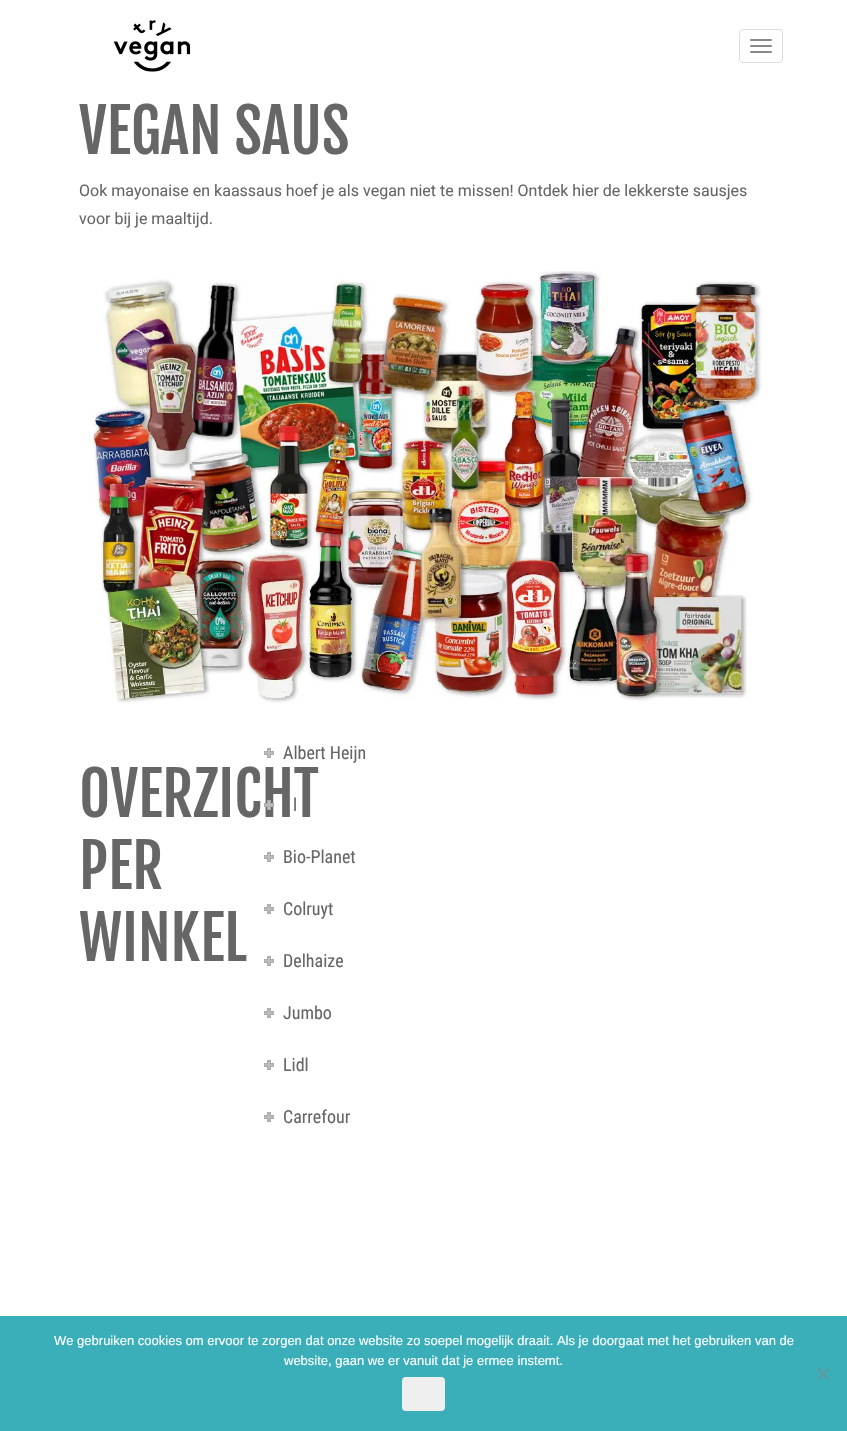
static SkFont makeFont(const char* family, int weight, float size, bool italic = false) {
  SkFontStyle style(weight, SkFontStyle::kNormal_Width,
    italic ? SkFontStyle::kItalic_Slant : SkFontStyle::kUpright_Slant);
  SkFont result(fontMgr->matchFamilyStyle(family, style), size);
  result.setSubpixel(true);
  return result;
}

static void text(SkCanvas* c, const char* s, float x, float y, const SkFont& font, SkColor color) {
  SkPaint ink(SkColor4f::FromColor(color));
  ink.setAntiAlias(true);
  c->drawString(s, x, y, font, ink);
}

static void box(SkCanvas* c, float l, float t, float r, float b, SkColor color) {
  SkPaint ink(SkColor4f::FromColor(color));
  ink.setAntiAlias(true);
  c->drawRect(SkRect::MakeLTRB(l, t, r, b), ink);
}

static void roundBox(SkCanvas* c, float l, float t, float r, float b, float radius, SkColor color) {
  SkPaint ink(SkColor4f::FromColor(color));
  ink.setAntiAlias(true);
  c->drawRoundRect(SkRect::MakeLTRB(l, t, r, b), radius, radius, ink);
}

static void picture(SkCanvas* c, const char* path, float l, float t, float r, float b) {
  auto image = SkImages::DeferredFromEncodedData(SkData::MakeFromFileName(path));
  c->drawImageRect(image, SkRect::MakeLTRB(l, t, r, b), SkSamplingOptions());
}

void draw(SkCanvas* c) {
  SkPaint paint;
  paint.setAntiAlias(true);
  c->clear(0xffffffff);
  picture(c, "img_01.png", 113, 20, 191, 72);
  paint.setStyle(SkPaint::kStroke_Style);
  paint.setStrokeWidth(1);
  paint.setColor(0xffdddddd);
  c->drawRoundRect(SkRect::MakeLTRB(739.5f, 29.5f, 782.5f, 62.5f), 3.5f, 3.5f, paint);
  roundBox(c, 750, 39, 772, 41, 1, 0xff888888);
  roundBox(c, 750, 45, 772, 47, 1, 0xff888888);
  roundBox(c, 750, 51, 772, 53, 1, 0xff888888);
  SkFont face1 = makeFont("Fjalla One", 400, 60);
  text(c, "VEGAN SAUS", 79, 154, face1, 0xff666666);
  SkFont face2 = makeFont("Roboto", 400, 16);
  text(c, "Ook mayonaise en kaassaus hoef je als vegan niet te missen! Ontdek hier de lekkerste sausjes", 79, 196, face2, 0xff666666);
  text(c, "voor bij je maaltijd.", 79, 224, face2, 0xff666666);
  picture(c, "img_02.png", 92, 271, 762, 703);
  text(c, "OVERZICHT", 79, 817, face1, 0xff666666);
  text(c, "PER", 79, 889, face1, 0xff666666);
  text(c, "WINKEL", 79, 961, face1, 0xff666666);
  paint.setColor(0xffacacac);
  c->drawRect(SkRect::MakeLTRB(264.5f, 751.5f, 273.5f, 754.5f), paint);
  paint.setStyle(SkPaint::kFill_Style);
  paint.setColor(0xffbababa);
  c->drawRect(SkRect::MakeLTRB(267.5f, 748.5f, 270.5f, 757.5f), paint);
  paint.setStyle(SkPaint::kStroke_Style);
  paint.setColor(0xffacacac);
  c->drawRect(SkRect::MakeLTRB(267.5f, 748.5f, 270.5f, 757.5f), paint);
  box(c, 265, 752, 273, 754, 0xffbababa);
  SkFont face3 = makeFont("Roboto Condensed", 400, 18);
  text(c, "Albert Heijn", 283, 759, face3, 0xff666666);
  c->drawRect(SkRect::MakeLTRB(264.5f, 803.5f, 273.5f, 806.5f), paint);
  paint.setStyle(SkPaint::kFill_Style);
  paint.setColor(0xffbababa);
  c->drawRect(SkRect::MakeLTRB(267.5f, 800.5f, 270.5f, 809.5f), paint);
  paint.setStyle(SkPaint::kStroke_Style);
  paint.setColor(0xffacacac);
  c->drawRect(SkRect::MakeLTRB(267.5f, 800.5f, 270.5f, 809.5f), paint);
  box(c, 265, 804, 273, 806, 0xffbababa);
  text(c, "l", 293, 811, face3, 0xff666666);
  c->drawRect(SkRect::MakeLTRB(264.5f, 855.5f, 273.5f, 858.5f), paint);
  paint.setStyle(SkPaint::kFill_Style);
  paint.setColor(0xffbababa);
  c->drawRect(SkRect::MakeLTRB(267.5f, 852.5f, 270.5f, 861.5f), paint);
  paint.setStyle(SkPaint::kStroke_Style);
  paint.setColor(0xffacacac);
  c->drawRect(SkRect::MakeLTRB(267.5f, 852.5f, 270.5f, 861.5f), paint);
  box(c, 265, 856, 273, 858, 0xffbababa);
  text(c, "Bio-Planet", 283, 863, face3, 0xff666666);
  c->drawRect(SkRect::MakeLTRB(264.5f, 907.5f, 273.5f, 910.5f), paint);
  paint.setStyle(SkPaint::kFill_Style);
  paint.setColor(0xffbababa);
  c->drawRect(SkRect::MakeLTRB(267.5f, 904.5f, 270.5f, 913.5f), paint);
  paint.setStyle(SkPaint::kStroke_Style);
  paint.setColor(0xffacacac);
  c->drawRect(SkRect::MakeLTRB(267.5f, 904.5f, 270.5f, 913.5f), paint);
  box(c, 265, 908, 273, 910, 0xffbababa);
  text(c, "Colruyt", 283, 915, face3, 0xff666666);
  c->drawRect(SkRect::MakeLTRB(264.5f, 959.5f, 273.5f, 962.5f), paint);
  paint.setStyle(SkPaint::kFill_Style);
  paint.setColor(0xffbababa);
  c->drawRect(SkRect::MakeLTRB(267.5f, 956.5f, 270.5f, 965.5f), paint);
  paint.setStyle(SkPaint::kStroke_Style);
  paint.setColor(0xffacacac);
  c->drawRect(SkRect::MakeLTRB(267.5f, 956.5f, 270.5f, 965.5f), paint);
  box(c, 265, 960, 273, 962, 0xffbababa);
  text(c, "Delhaize", 283, 967, face3, 0xff666666);
  c->drawRect(SkRect::MakeLTRB(264.5f, 1011.5f, 273.5f, 1014.5f), paint);
  paint.setStyle(SkPaint::kFill_Style);
  paint.setColor(0xffbababa);
  c->drawRect(SkRect::MakeLTRB(267.5f, 1008.5f, 270.5f, 1017.5f), paint);
  paint.setStyle(SkPaint::kStroke_Style);
  paint.setColor(0xffacacac);
  c->drawRect(SkRect::MakeLTRB(267.5f, 1008.5f, 270.5f, 1017.5f), paint);
  box(c, 265, 1012, 273, 1014, 0xffbababa);
  text(c, "Jumbo", 283, 1019, face3, 0xff666666);
  c->drawRect(SkRect::MakeLTRB(264.5f, 1063.5f, 273.5f, 1066.5f), paint);
  paint.setStyle(SkPaint::kFill_Style);
  paint.setColor(0xffbababa);
  c->drawRect(SkRect::MakeLTRB(267.5f, 1060.5f, 270.5f, 1069.5f), paint);
  paint.setStyle(SkPaint::kStroke_Style);
  paint.setColor(0xffacacac);
  c->drawRect(SkRect::MakeLTRB(267.5f, 1060.5f, 270.5f, 1069.5f), paint);
  box(c, 265, 1064, 273, 1066, 0xffbababa);
  text(c, "Lidl", 283, 1071, face3, 0xff666666);
  c->drawRect(SkRect::MakeLTRB(264.5f, 1115.5f, 273.5f, 1118.5f), paint);
  paint.setStyle(SkPaint::kFill_Style);
  paint.setColor(0xffbababa);
  c->drawRect(SkRect::MakeLTRB(267.5f, 1112.5f, 270.5f, 1121.5f), paint);
  paint.setStyle(SkPaint::kStroke_Style);
  paint.setColor(0xffacacac);
  c->drawRect(SkRect::MakeLTRB(267.5f, 1112.5f, 270.5f, 1121.5f), paint);
  box(c, 265, 1116, 273, 1118, 0xffbababa);
  text(c, "Carrefour", 283, 1123, face3, 0xff666666);
  box(c, 0, 1316, 847, 1431, 0xff3aafb9);
  SkFont face4 = makeFont("Liberation Sans", 400, 13);
  text(c, "We gebruiken cookies om ervoor te zorgen dat onze website zo soepel mogelijk draait. Als je doorgaat met het gebruiken van de", 54, 1345, face4, 0xffffffff);
  text(c, "website, gaan we er vanuit dat je ermee instemt.", 284, 1365, face4, 0xffffffff);
  paint.setStyle(SkPaint::kFill_Style);
  paint.setColor(0xff5d989d);
  c->drawPath(SkPathBuilder().moveTo(827.5f, 1368).lineTo(829, 1369.5f).lineTo(818.5f, 1380).lineTo(817, 1378.5f).close().detach(), paint);
  c->drawPath(SkPathBuilder().moveTo(817, 1369.5f).lineTo(818.5f, 1368).lineTo(829, 1378.5f).lineTo(827.5f, 1380).close().detach(), paint);
  roundBox(c, 402, 1377, 445, 1411, 4, 0xffefefef);
}
